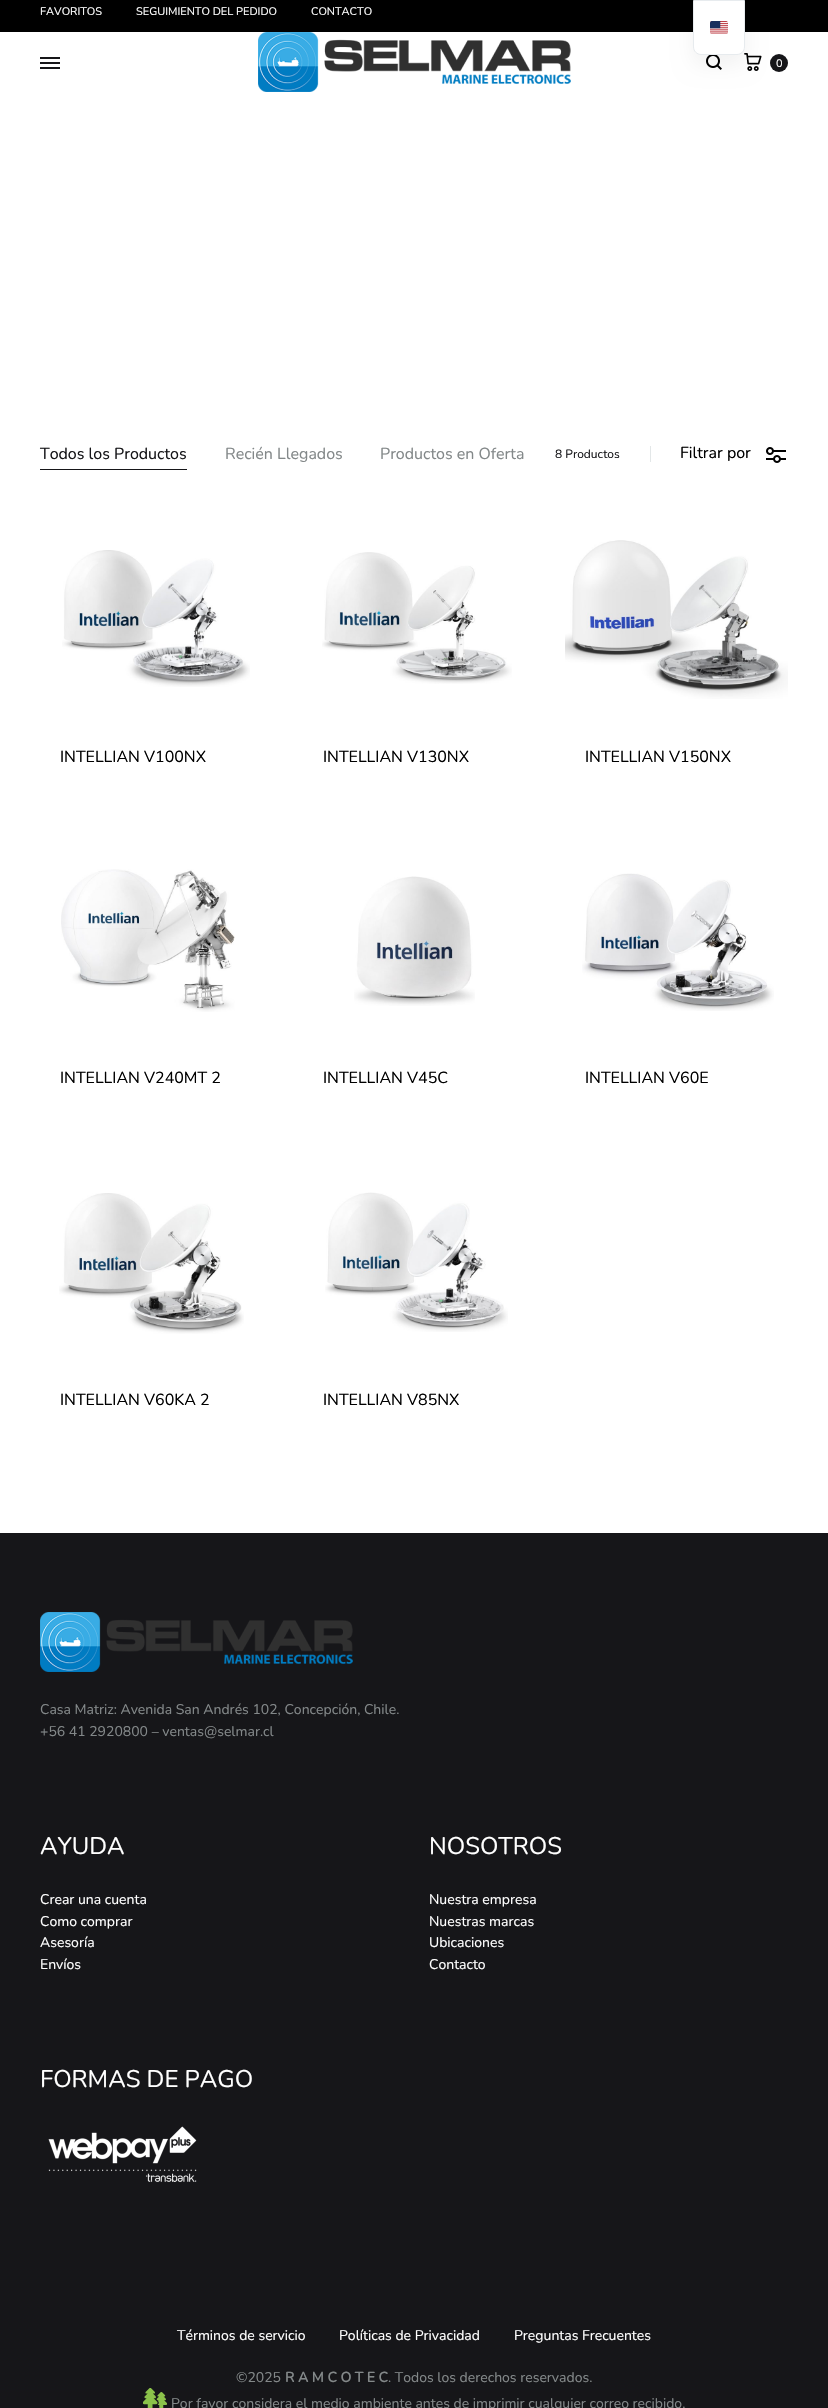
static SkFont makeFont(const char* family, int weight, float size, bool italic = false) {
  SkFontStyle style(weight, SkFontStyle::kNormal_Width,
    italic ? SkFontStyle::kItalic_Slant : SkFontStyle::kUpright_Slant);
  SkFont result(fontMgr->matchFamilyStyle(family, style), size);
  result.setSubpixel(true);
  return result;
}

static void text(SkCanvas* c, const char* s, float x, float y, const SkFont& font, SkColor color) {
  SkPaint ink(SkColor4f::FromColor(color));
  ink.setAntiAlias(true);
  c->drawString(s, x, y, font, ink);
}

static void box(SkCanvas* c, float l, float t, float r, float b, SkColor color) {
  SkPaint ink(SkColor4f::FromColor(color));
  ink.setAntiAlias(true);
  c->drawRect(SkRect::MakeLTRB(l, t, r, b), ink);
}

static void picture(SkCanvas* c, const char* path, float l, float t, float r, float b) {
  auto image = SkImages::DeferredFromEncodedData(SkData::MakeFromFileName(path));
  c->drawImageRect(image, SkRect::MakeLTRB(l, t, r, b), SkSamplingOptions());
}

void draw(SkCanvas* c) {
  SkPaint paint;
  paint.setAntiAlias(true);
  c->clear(0xffffffff);
  box(c, 0, 0, 828, 32, 0xff000000);
  picture(c, "img_03.png", 706, 55, 722, 70);
  picture(c, "img_04.png", 744, 53, 762, 71);
  paint.setColor(0xff161619);
  c->drawCircle(779, 63, 9, paint);
  paint.setColor(0x0d000000);
  paint.setMaskFilter(SkMaskFilter::MakeBlur(kNormal_SkBlurStyle, 10));
  c->drawRoundRect(SkRect::MakeLTRB(693, 10, 745, 65), 8, 8, paint);
  paint.setMaskFilter(nullptr);
  paint.setColor(0xffffffff);
  c->drawPath(SkPathBuilder().moveTo(693.5f, 0.5f).lineTo(744.5f, 0.5f).lineTo(744.5f, 47).cubicTo(744.5f, 51, 741, 54.5f, 737, 54.5f).lineTo(701, 54.5f).cubicTo(697, 54.5f, 693.5f, 51, 693.5f, 47).close().detach(), paint);
  paint.setStyle(SkPaint::kStroke_Style);
  paint.setStrokeWidth(1);
  paint.setColor(0xffe7ebee);
  c->drawPath(SkPathBuilder().moveTo(693.5f, 0.5f).lineTo(744.5f, 0.5f).lineTo(744.5f, 47).cubicTo(744.5f, 51, 741, 54.5f, 737, 54.5f).lineTo(701, 54.5f).cubicTo(697, 54.5f, 693.5f, 51, 693.5f, 47).close().detach(), paint);
  picture(c, "img_01.png", 710, 21, 728, 34);
  SkFont face1 = makeFont("Nunito", 200, 11);
  text(c, "FAVORITOS", 40, 15, face1, 0xffffffff);
  text(c, "SEGUIMIENTO DEL PEDIDO", 136, 15, face1, 0xffffffff);
  text(c, "CONTACTO", 311, 15, face1, 0xffffffff);
  box(c, 40, 62, 60, 64, 0xff161619);
  box(c, 40, 57, 60, 59, 0xff161619);
  box(c, 40, 67, 60, 69, 0xff161619);
  picture(c, "img_02.png", 258, 32, 571, 92);
  text(c, "0", 776, 67, face1, 0xffffffff);
  SkFont face2 = makeFont("Nunito", 200, 16);
  text(c, "Todos los Productos", 40, 459, face2, 0xff161619);
  box(c, 40, 469, 187, 470, 0xff161619);
  text(c, "Recién Llegados", 225, 459, face2, 0xff838889);
  text(c, "Productos en Oferta", 380, 459, face2, 0xff838889);
  SkFont face3 = makeFont("Nunito", 200, 12);
  text(c, "8 Productos", 555, 458, face3, 0xff161619);
  box(c, 650, 446, 651, 462, 0xffe3e7e8);
  text(c, "Filtrar por", 680, 458, face2, 0xff000000);
  picture(c, "img_05.png", 766, 447, 786, 463);
  picture(c, "img_06.png", 62, 550, 250, 687);
  text(c, "INTELLIAN V100NX", 60, 762, face2, 0xff000000);
  picture(c, "img_07.png", 322, 552, 512, 684);
  text(c, "INTELLIAN V130NX", 323, 762, face2, 0xff000000);
  picture(c, "img_08.png", 565, 540, 788, 699);
  text(c, "INTELLIAN V150NX", 585, 762, face2, 0xff000000);
  picture(c, "img_09.png", 61, 869, 235, 1012);
  text(c, "INTELLIAN V240MT 2", 60, 1083, face2, 0xff000000);
  picture(c, "img_10.png", 354, 876, 475, 1006);
  text(c, "INTELLIAN V45C", 323, 1083, face2, 0xff000000);
  picture(c, "img_11.png", 582, 873, 774, 1011);
  text(c, "INTELLIAN V60E", 585, 1083, face2, 0xff000000);
  picture(c, "img_12.png", 59, 1193, 244, 1334);
  text(c, "INTELLIAN V60KA 2", 60, 1405, face2, 0xff000000);
  picture(c, "img_13.png", 325, 1192, 508, 1332);
  text(c, "INTELLIAN V85NX", 323, 1405, face2, 0xff000000);
  box(c, 0, 1533, 828, 2408, 0xff161619);
  picture(c, "img_14.png", 40, 1612, 353, 1672);
  SkFont face4 = makeFont("Nunito", 200, 14);
  text(c, "Casa Matriz: Avenida San Andrés 102, Concepción, Chile.", 40, 1714, face4, 0xff838889);
  text(c, "+56 41 2920800 – ventas@selmar.cl", 40, 1736, face4, 0xff838889);
  SkFont face5 = makeFont("Nunito", 200, 24);
  text(c, "AYUDA", 40, 1854, face5, 0xffffffff);
  text(c, "Crear una cuenta", 40, 1904, face4, 0xffffffff);
  text(c, "Como comprar", 40, 1926, face4, 0xffffffff);
  text(c, "Asesoría", 40, 1947, face4, 0xffffffff);
  text(c, "Envíos", 40, 1969, face4, 0xffffffff);
  text(c, "NOSOTROS", 429, 1854, face5, 0xffffffff);
  text(c, "Nuestra empresa", 429, 1904, face4, 0xffffffff);
  text(c, "Nuestras marcas", 429, 1926, face4, 0xffffffff);
  text(c, "Ubicaciones", 429, 1947, face4, 0xffffffff);
  text(c, "Contacto", 429, 1969, face4, 0xffffffff);
  text(c, "FORMAS DE PAGO", 40, 2087, face5, 0xffffffff);
  picture(c, "img_15.png", 48, 2126, 197, 2182);
  text(c, "Términos de servicio", 177, 2340, face4, 0xffffffff);
  text(c, "Políticas de Privacidad", 339, 2340, face4, 0xffffffff);
  text(c, "Preguntas Frecuentes", 514, 2340, face4, 0xffffffff);
  text(c, "©2025", 236, 2382, face4, 0xff838889);
  SkFont face6 = makeFont("Nunito", 700, 14);
  text(c, "R A M C O T E C", 285, 2382, face6, 0xff838889);
  text(c, ". Todos los derechos reservados.", 388, 2382, face4, 0xff838889);
  picture(c, "img_16.png", 143, 2388, 167, 2408);
  text(c, "Por favor considera el medio ambiente antes de imprimir cualquier correo recibido.", 171, 2408, face4, 0xff838889);
}
